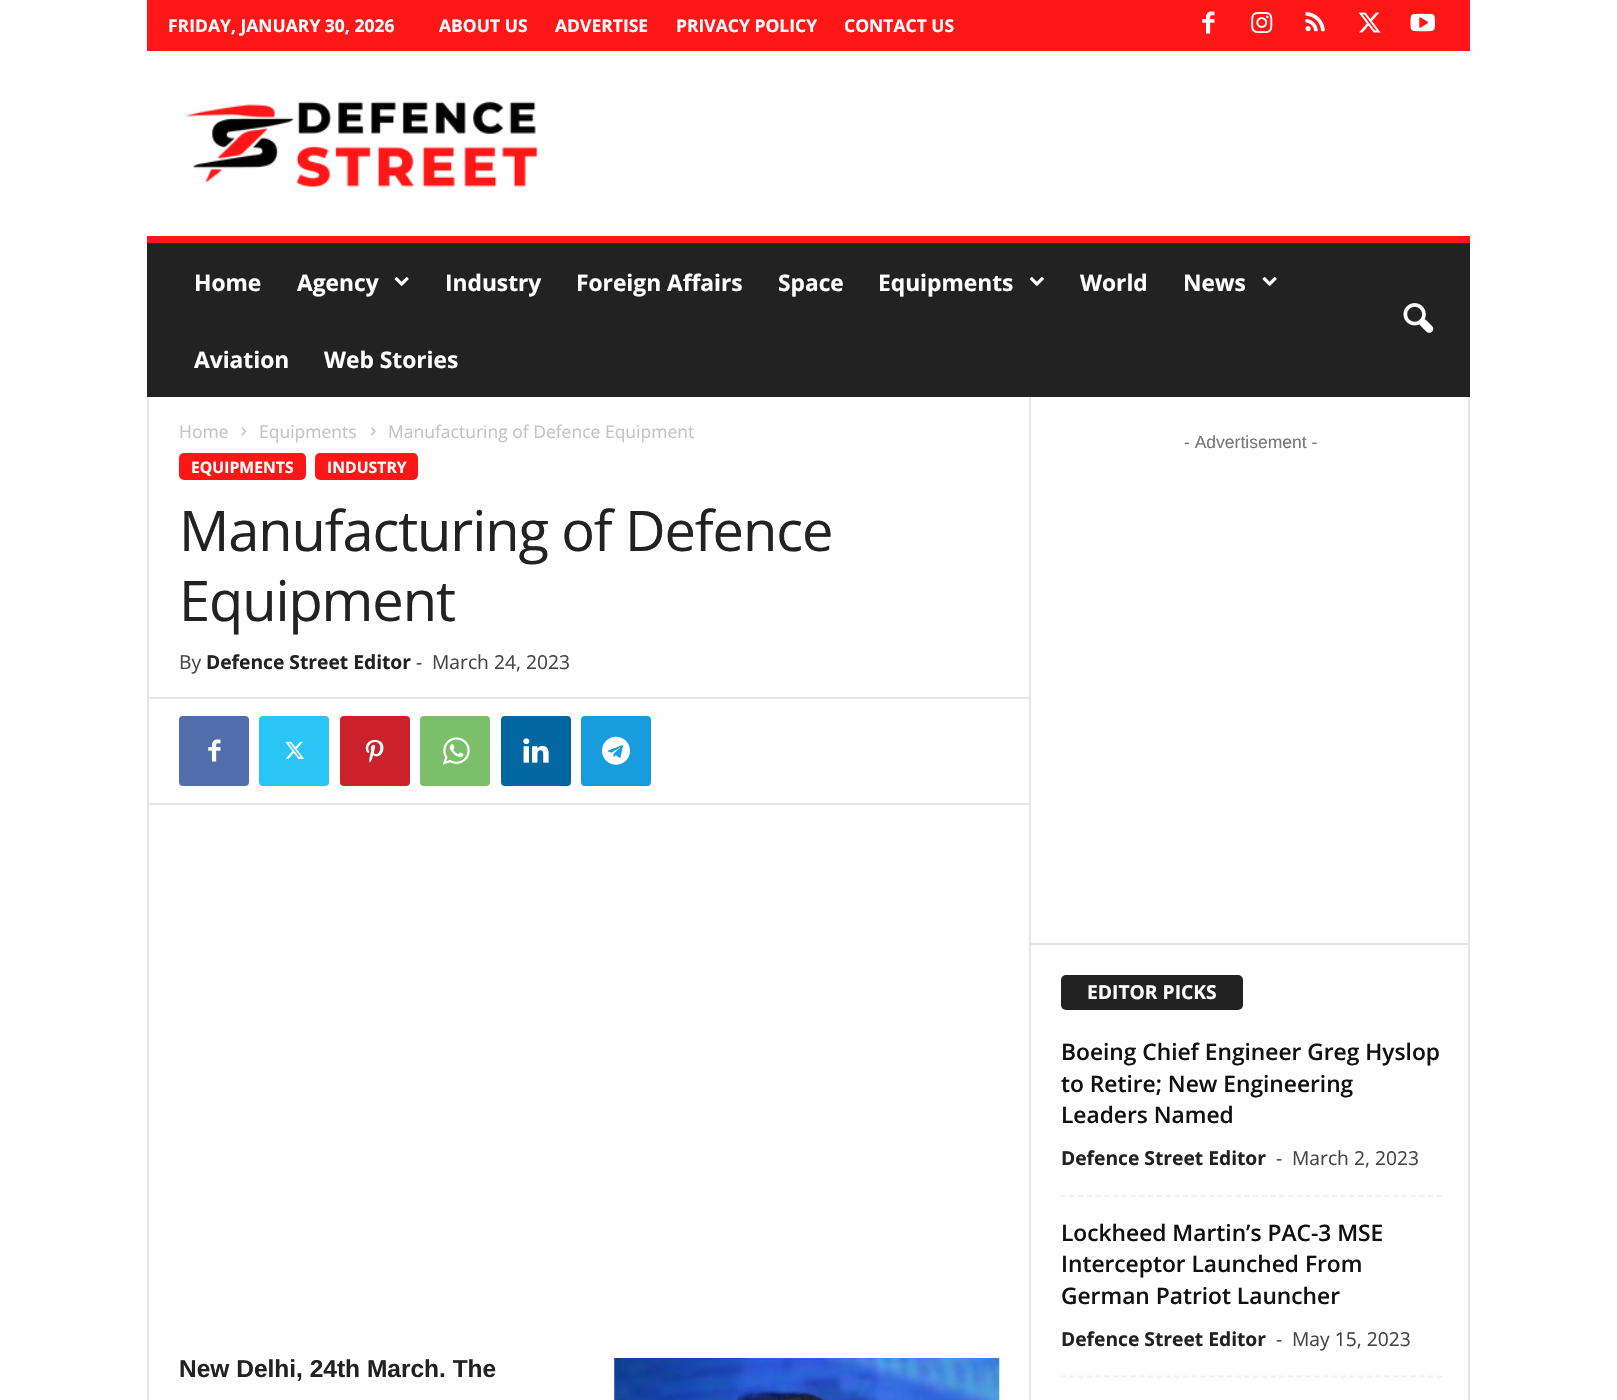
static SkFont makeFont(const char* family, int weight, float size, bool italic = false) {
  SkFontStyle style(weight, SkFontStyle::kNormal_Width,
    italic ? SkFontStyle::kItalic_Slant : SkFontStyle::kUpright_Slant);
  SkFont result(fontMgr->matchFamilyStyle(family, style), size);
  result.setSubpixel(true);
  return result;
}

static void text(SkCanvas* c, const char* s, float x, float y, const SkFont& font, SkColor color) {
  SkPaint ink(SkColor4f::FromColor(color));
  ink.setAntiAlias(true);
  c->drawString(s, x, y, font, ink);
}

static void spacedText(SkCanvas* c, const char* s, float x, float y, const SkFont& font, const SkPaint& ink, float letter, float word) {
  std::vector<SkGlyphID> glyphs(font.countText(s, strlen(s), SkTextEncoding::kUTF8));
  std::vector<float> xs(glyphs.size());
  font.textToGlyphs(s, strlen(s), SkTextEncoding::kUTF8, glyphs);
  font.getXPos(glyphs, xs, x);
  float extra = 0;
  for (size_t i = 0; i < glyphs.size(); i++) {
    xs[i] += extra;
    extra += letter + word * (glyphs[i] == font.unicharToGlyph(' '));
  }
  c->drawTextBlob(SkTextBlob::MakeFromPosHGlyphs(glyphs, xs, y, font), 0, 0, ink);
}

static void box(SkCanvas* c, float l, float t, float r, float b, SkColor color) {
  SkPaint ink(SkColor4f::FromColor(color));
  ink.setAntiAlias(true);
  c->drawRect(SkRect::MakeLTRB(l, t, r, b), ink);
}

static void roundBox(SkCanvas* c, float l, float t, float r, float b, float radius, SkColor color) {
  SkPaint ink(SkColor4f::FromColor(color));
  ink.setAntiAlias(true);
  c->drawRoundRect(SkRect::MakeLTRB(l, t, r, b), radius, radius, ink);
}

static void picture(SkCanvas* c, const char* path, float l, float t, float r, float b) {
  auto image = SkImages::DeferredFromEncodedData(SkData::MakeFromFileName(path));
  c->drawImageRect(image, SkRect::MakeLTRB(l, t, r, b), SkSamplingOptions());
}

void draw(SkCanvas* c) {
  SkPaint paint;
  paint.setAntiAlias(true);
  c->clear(0xffffffff);
  box(c, 147, 0, 1470, 51, 0xffff1616);
  SkFont face1 = makeFont("Open Sans", 700, 17.5f);
  text(c, "FRIDAY, JANUARY 30, 2026", 168, 32, face1, 0xffffffff);
  text(c, "ABOUT US", 439, 32, face1, 0xffffffff);
  text(c, "ADVERTISE", 555, 32, face1, 0xffffffff);
  text(c, "PRIVACY POLICY", 676, 32, face1, 0xffffffff);
  text(c, "CONTACT US", 844, 32, face1, 0xffffffff);
  picture(c, "img_01.png", 1202, 11, 1215, 34);
  picture(c, "img_02.png", 1251, 12, 1273, 34);
  picture(c, "img_03.png", 1305, 12, 1325, 32);
  picture(c, "img_04.png", 1358, 12, 1381, 33);
  picture(c, "img_05.png", 1410, 13, 1435, 32);
  picture(c, "img_06.png", 186, 101, 538, 188);
  box(c, 147, 243, 1470, 397, 0xff222222);
  box(c, 147, 236, 1470, 243, 0xffff1616);
  SkFont face2 = makeFont("Open Sans", 700, 22.75f);
  text(c, "Home", 194, 291, face2, 0xffffffff);
  text(c, "Agency", 297, 291, face2, 0xffffffff);
  picture(c, "img_07.png", 394, 277, 409, 286);
  text(c, "Industry", 445, 291, face2, 0xffffffff);
  text(c, "Foreign Affairs", 576, 291, face2, 0xffffffff);
  text(c, "Space", 778, 291, face2, 0xffffffff);
  text(c, "Equipments", 878, 291, face2, 0xffffffff);
  picture(c, "img_08.png", 1029, 277, 1044, 286);
  text(c, "World", 1080, 291, face2, 0xffffffff);
  text(c, "News", 1183, 291, face2, 0xffffffff);
  picture(c, "img_07.png", 1262, 277, 1277, 286);
  text(c, "Aviation", 194, 368, face2, 0xffffffff);
  text(c, "Web Stories", 324, 368, face2, 0xffffffff);
  picture(c, "img_09.png", 1403, 303, 1434, 333);
  box(c, 147, 397, 149, 1400, 0xffe6e6e6);
  SkFont face3 = makeFont("Open Sans", 400, 17.5f);
  text(c, "Home", 179, 438, face3, 0xffc3c3c3);
  picture(c, "img_10.png", 241, 427, 247, 436);
  text(c, "Equipments", 259, 438, face3, 0xffc3c3c3);
  picture(c, "img_11.png", 371, 427, 376, 436);
  text(c, "Manufacturing of Defence Equipment", 388, 438, face3, 0xffc3c3c3);
  roundBox(c, 179, 453, 306, 480, 5, 0xffff1616);
  SkFont face4 = makeFont("Open Sans", 700, 15.75f);
  text(c, "EQUIPMENTS", 191, 473, face4, 0xffffffff);
  roundBox(c, 315, 453, 418, 480, 5, 0xffff1616);
  text(c, "INDUSTRY", 327, 473, face4, 0xffffffff);
  SkFont face5 = makeFont("Open Sans", 400, 56);
  paint.setColor(0xff222222);
  spacedText(c, "Manufacturing of Defence", 179, 551, face5, paint, -1.1f, 0);
  spacedText(c, "Equipment", 179, 621, face5, paint, -1.1f, 0);
  SkFont face6 = makeFont("Open Sans", 400, 19.25f);
  text(c, "By", 179, 669, face6, 0xff444444);
  SkFont face7 = makeFont("Open Sans", 700, 19.25f);
  text(c, "Defence Street Editor", 206, 669, face7, 0xff222222);
  text(c, "-", 416, 669, face6, 0xff444444);
  text(c, "March 24, 2023", 432, 669, face6, 0xff444444);
  box(c, 149, 697, 1029, 699, 0xffe6e6e6);
  roundBox(c, 179, 716, 249, 786, 4, 0xff516eab);
  picture(c, "img_12.png", 208, 739, 221, 762);
  roundBox(c, 259, 716, 329, 786, 4, 0xff29c5f6);
  picture(c, "img_13.png", 285, 741, 304, 759);
  roundBox(c, 340, 716, 410, 786, 4, 0xffca212a);
  picture(c, "img_14.png", 365, 739, 384, 763);
  roundBox(c, 420, 716, 490, 786, 4, 0xff7bbf6a);
  picture(c, "img_15.png", 442, 737, 470, 765);
  roundBox(c, 501, 716, 571, 786, 4, 0xff0266a0);
  picture(c, "img_16.png", 523, 738, 549, 763);
  roundBox(c, 581, 716, 651, 786, 4, 0xff179cde);
  picture(c, "img_17.png", 602, 736, 630, 765);
  box(c, 149, 803, 1029, 805, 0xffe6e6e6);
  SkFont face8 = makeFont("Liberation Sans", 700, 24.5f);
  text(c, "New Delhi, 24th March. The", 179, 1377, face8, 0xff222222);
  picture(c, "img_18.png", 614, 1358, 1000, 1400);
  box(c, 1029, 397, 1031, 1400, 0xffe6e6e6);
  SkFont face9 = makeFont("Liberation Sans", 400, 17.5f);
  text(c, "- Advertisement -", 1184, 448, face9, 0xff767676);
  box(c, 1468, 397, 1470, 1400, 0xffe6e6e6);
  box(c, 1031, 943, 1470, 945, 0xffe6e6e6);
  roundBox(c, 1061, 975, 1243, 1010, 5, 0xff222222);
  text(c, "EDITOR PICKS", 1087, 999, face7, 0xffffffff);
  paint.setStyle(SkPaint::kStroke_Style);
  paint.setStrokeWidth(1.8f);
  paint.setColor(0xfff1f1f1);
  paint.setPathEffect(SkDashPathEffect::Make({{5.25f, 3.5f}}, 0));
  c->drawPath(SkPathBuilder().moveTo(1060.5f, 1196).lineTo(1442, 1196).detach(), paint);
  paint.setPathEffect(nullptr);
  SkFont face10 = makeFont("Open Sans", 600, 22.75f);
  text(c, "Boeing Chief Engineer Greg Hyslop", 1061, 1060, face10, 0xff111111);
  text(c, "to Retire; New Engineering", 1061, 1092, face10, 0xff111111);
  text(c, "Leaders Named", 1061, 1123, face10, 0xff111111);
  text(c, "Defence Street Editor", 1061, 1165, face7, 0xff222222);
  text(c, "-", 1276, 1165, face6, 0xff444444);
  text(c, "March 2, 2023", 1292, 1165, face6, 0xff444444);
  paint.setPathEffect(SkDashPathEffect::Make({{5.25f, 3.5f}}, 0));
  c->drawPath(SkPathBuilder().moveTo(1060.5f, 1376.5f).lineTo(1442, 1376.5f).detach(), paint);
  paint.setPathEffect(nullptr);
  text(c, "Lockheed Martin’s PAC-3 MSE", 1061, 1241, face10, 0xff111111);
  text(c, "Interceptor Launched From", 1061, 1272, face10, 0xff111111);
  text(c, "German Patriot Launcher", 1061, 1304, face10, 0xff111111);
  text(c, "Defence Street Editor", 1061, 1346, face7, 0xff222222);
  text(c, "-", 1276, 1346, face6, 0xff444444);
  text(c, "May 15, 2023", 1292, 1346, face6, 0xff444444);
}
